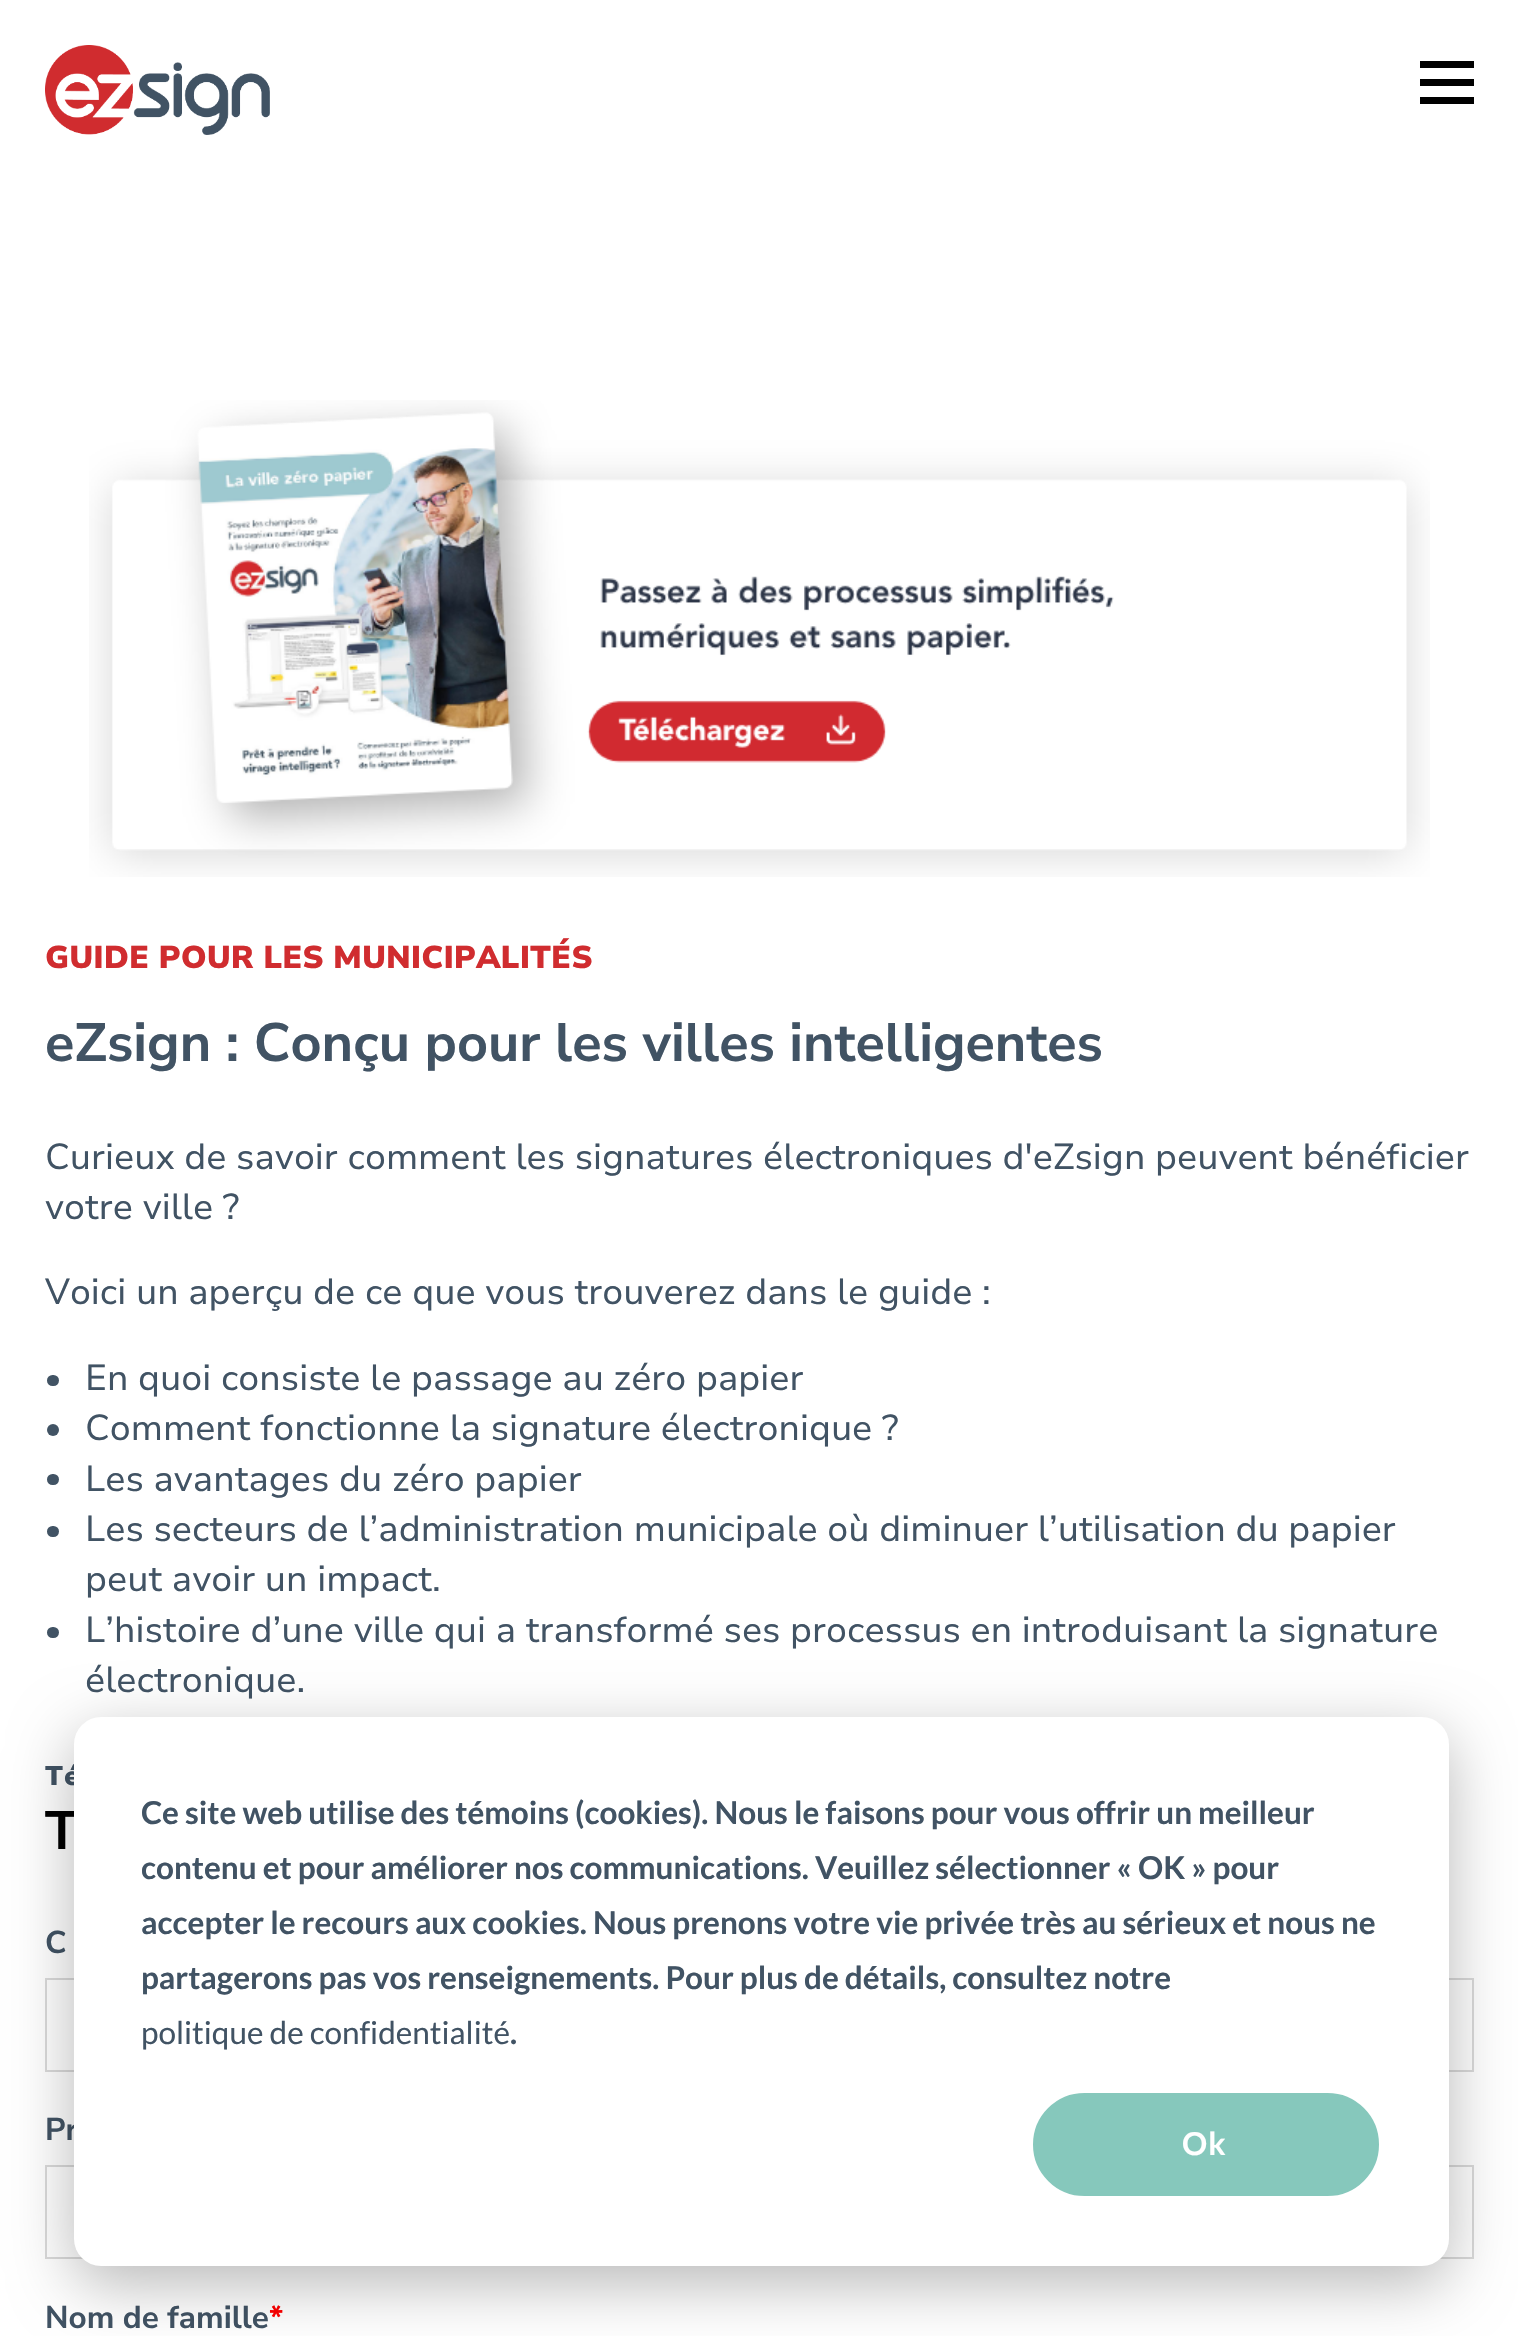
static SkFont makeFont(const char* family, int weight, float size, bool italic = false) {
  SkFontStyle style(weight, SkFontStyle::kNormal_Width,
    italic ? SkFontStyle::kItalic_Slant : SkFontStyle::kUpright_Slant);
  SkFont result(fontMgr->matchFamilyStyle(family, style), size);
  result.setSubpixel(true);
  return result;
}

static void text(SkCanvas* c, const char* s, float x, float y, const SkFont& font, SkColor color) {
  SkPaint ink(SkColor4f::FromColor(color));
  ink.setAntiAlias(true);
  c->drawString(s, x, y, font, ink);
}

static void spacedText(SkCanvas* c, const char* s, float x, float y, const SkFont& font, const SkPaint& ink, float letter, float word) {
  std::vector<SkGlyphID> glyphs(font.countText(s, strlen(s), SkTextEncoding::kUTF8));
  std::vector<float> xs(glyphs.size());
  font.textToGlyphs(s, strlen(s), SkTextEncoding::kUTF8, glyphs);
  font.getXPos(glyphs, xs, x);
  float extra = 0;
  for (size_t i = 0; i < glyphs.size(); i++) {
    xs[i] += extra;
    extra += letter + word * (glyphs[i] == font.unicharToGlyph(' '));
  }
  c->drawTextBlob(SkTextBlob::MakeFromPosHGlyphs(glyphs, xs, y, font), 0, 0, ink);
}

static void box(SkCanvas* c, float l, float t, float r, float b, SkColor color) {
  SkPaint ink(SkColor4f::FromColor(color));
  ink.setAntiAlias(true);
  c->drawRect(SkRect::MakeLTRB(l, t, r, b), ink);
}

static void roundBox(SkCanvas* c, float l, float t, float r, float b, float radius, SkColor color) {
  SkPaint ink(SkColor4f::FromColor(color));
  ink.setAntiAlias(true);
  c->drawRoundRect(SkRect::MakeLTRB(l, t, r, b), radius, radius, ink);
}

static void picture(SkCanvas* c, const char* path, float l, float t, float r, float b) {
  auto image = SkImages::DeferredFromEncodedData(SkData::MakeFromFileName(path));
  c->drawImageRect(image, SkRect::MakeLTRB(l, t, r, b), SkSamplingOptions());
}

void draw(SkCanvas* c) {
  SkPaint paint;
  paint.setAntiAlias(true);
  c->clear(0xffffffff);
  picture(c, "img_01.png", 45, 45, 270, 135);
  box(c, 1420, 79, 1474, 86, 0xff000000);
  box(c, 1420, 61, 1474, 68, 0xff000000);
  box(c, 1420, 97, 1474, 104, 0xff000000);
  picture(c, "img_02.png", 89, 400, 1430, 877);
  SkFont face1 = makeFont("Nunito Sans", 900, 31.5f);
  text(c, "GUIDE POUR LES MUNICIPALITÉS", 45, 968, face1, 0xffd02c2f);
  SkFont face2 = makeFont("Nunito Sans", 700, 54);
  text(c, "eZsign : Conçu pour les villes intelligentes", 45, 1061, face2, 0xff415364);
  SkFont face3 = makeFont("Nunito Sans", 400, 36);
  text(c, "Curieux de savoir comment les signatures électroniques d'eZsign peuvent bénéficier", 45, 1169, face3, 0xff415364);
  text(c, "votre ville ?", 45, 1219, face3, 0xff415364);
  text(c, "Voici un aperçu de ce que vous trouverez dans le guide :", 45, 1304, face3, 0xff415364);
  roundBox(c, 47, 1375, 59, 1386, 5.5f, 0xff415364);
  text(c, "En quoi consiste le passage au zéro papier", 85, 1390, face3, 0xff415364);
  paint.setColor(0xff415364);
  c->drawCircle(53, 1430, 6, paint);
  text(c, "Comment fonctionne la signature électronique ?", 85, 1440, face3, 0xff415364);
  roundBox(c, 47, 1474, 59, 1485, 5.5f, 0xff415364);
  text(c, "Les avantages du zéro papier", 85, 1491, face3, 0xff415364);
  roundBox(c, 47, 1526, 59, 1537, 5.5f, 0xff415364);
  text(c, "Les secteurs de l’administration municipale où diminuer l’utilisation du papier", 85, 1541, face3, 0xff415364);
  text(c, "peut avoir un impact.", 85, 1591, face3, 0xff415364);
  roundBox(c, 47, 1627, 59, 1638, 5.5f, 0xff415364);
  text(c, "L’histoire d’une ville qui a transformé ses processus en introduisant la signature", 85, 1642, face3, 0xff415364);
  text(c, "électronique.", 85, 1692, face3, 0xff415364);
  SkFont face4 = makeFont("Nunito Sans", 900, 27);
  spacedText(c, "Té", 45, 1785, face4, paint, 1, 0);
  text(c, "T", 45, 1849, face2, 0xff000000);
  SkFont face5 = makeFont("Nunito Sans", 700, 31.5f);
  text(c, "C", 45, 1953, face5, 0xff415364);
  paint.setStyle(SkPaint::kStroke_Style);
  paint.setStrokeWidth(2);
  paint.setColor(0xffdadada);
  c->drawRect(SkRect::MakeLTRB(46, 1979, 1473, 2071), paint);
  text(c, "Pr", 45, 2140, face5, 0xff415364);
  c->drawRect(SkRect::MakeLTRB(46, 2166, 1473, 2258), paint);
  text(c, "Nom de famille", 45, 2328, face5, 0xff415364);
  text(c, "*", 269, 2328, face5, 0xffff0000);
  paint.setStyle(SkPaint::kFill_Style);
  paint.setColor(0x47000000);
  paint.setMaskFilter(SkMaskFilter::MakeBlur(kNormal_SkBlurStyle, 31.5f));
  c->drawRoundRect(SkRect::MakeLTRB(74, 1735, 1449, 2284), 27, 27, paint);
  paint.setMaskFilter(nullptr);
  roundBox(c, 74, 1717, 1449, 2266, 27, 0xffffffff);
  SkFont face6 = makeFont("Lato", 700, 31.5f);
  text(c, "Ce site web utilise des témoins (cookies). Nous le faisons pour vous offrir un meilleur", 141, 1824, face6, 0xff415364);
  text(c, "contenu et pour améliorer nos communications. Veuillez sélectionner « OK » pour", 141, 1879, face6, 0xff415364);
  text(c, "accepter le recours aux cookies. Nous prenons votre vie privée très au sérieux et nous ne", 141, 1934, face6, 0xff415364);
  text(c, "partagerons pas vos renseignements. Pour plus de détails, consultez notre", 141, 1989, face6, 0xff415364);
  SkFont face7 = makeFont("Lato", 400, 31.5f);
  text(c, "politique de confidentialité", 141, 2044, face7, 0xff415364);
  text(c, ".", 510, 2044, face6, 0xff415364);
  paint.setColor(0xff86c8bc);
  c->drawRoundRect(SkRect::MakeLTRB(1034, 2094, 1378, 2195), 50.5f, 50.5f, paint);
  paint.setStyle(SkPaint::kStroke_Style);
  c->drawRoundRect(SkRect::MakeLTRB(1034, 2094, 1378, 2195), 50.5f, 50.5f, paint);
  paint.setStyle(SkPaint::kFill_Style);
  paint.setColor(0xffffffff);
  spacedText(c, "Ok", 1182, 2155, face6, paint, 1, 0);
}
